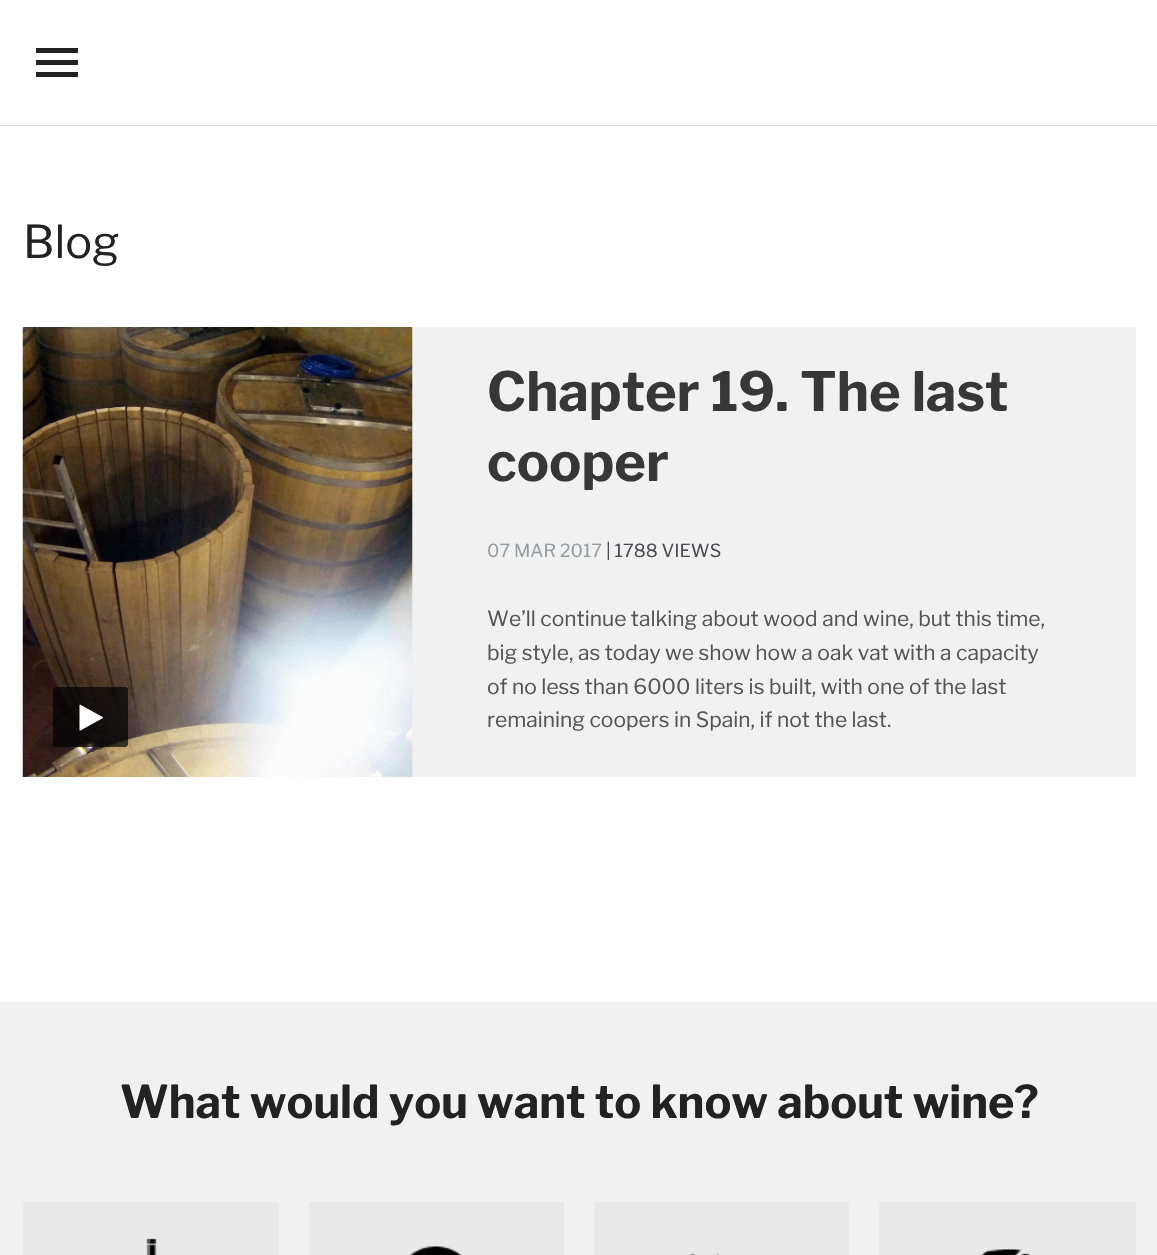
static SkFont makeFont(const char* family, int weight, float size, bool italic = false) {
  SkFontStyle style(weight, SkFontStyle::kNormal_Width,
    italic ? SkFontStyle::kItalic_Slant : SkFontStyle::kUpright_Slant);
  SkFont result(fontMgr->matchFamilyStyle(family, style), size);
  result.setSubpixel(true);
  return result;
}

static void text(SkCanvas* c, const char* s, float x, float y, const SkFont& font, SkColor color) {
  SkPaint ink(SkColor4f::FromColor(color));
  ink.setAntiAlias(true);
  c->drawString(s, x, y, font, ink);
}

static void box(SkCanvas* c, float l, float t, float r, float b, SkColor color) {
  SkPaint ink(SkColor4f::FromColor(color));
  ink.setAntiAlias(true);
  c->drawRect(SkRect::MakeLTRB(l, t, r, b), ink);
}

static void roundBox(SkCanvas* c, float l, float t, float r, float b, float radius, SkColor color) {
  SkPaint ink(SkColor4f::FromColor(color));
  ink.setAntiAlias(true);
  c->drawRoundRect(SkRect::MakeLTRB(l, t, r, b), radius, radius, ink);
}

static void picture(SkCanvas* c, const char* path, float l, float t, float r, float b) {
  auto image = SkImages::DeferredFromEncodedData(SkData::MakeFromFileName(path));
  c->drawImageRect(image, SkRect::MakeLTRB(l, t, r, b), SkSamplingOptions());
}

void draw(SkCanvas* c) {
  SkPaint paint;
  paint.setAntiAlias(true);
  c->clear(0xffffffff);
  box(c, 0, 125, 1157, 126, 0xffd8d8d8);
  box(c, 36, 48, 78, 53, 0xff222222);
  box(c, 36, 60, 78, 65, 0xff222222);
  box(c, 36, 72, 78, 77, 0xff222222);
  SkFont face1 = makeFont("Libre Franklin", 400, 45);
  text(c, "Blog", 23, 258, face1, 0xff222222);
  box(c, 412, 327, 1136, 777, 0xfff1f1f1);
  picture(c, "img_01.png", 22, 327, 413, 777);
  roundBox(c, 53, 687, 128, 747, 3, 0xb3000000);
  picture(c, "img_02.png", 79, 704, 103, 731);
  SkFont face2 = makeFont("Libre Franklin", 700, 54);
  text(c, "Chapter 19. The last", 487, 411, face2, 0xff373737);
  text(c, "cooper", 487, 481, face2, 0xff373737);
  SkFont face3 = makeFont("Libre Franklin", 400, 18);
  text(c, "07 MAR 2017", 487, 557, face3, 0xff949da2);
  text(c, "| 1788 VIEWS", 606, 557, face3, 0xff484b51);
  SkFont face4 = makeFont("Libre Franklin", 400, 21);
  text(c, "We’ll continue talking about wood and wine, but this time,", 487, 626, face4, 0xff555555);
  text(c, "big style, as today we show how a oak vat with a capacity", 487, 660, face4, 0xff555555);
  text(c, "of no less than 6000 liters is built, with one of the last", 487, 694, face4, 0xff555555);
  text(c, "remaining coopers in Spain, if not the last.", 487, 727, face4, 0xff555555);
  box(c, 0, 1002, 1157, 1255, 0xfff1f1f1);
  SkFont face5 = makeFont("Libre Franklin", 700, 45);
  text(c, "What would you want to know about wine?", 120, 1118, face5, 0xff222222);
  box(c, 23, 1202, 279, 1255, 0xffe9e9e9);
  picture(c, "img_03.png", 146, 1238, 157, 1255);
  box(c, 309, 1202, 564, 1255, 0xffe9e9e9);
  picture(c, "img_04.png", 409, 1246, 462, 1255);
  box(c, 594, 1202, 849, 1255, 0xffe9e9e9);
  picture(c, "img_05.png", 689, 1253, 720, 1255);
  box(c, 879, 1202, 1136, 1255, 0xffe9e9e9);
  picture(c, "img_06.png", 982, 1249, 1031, 1255);
}
